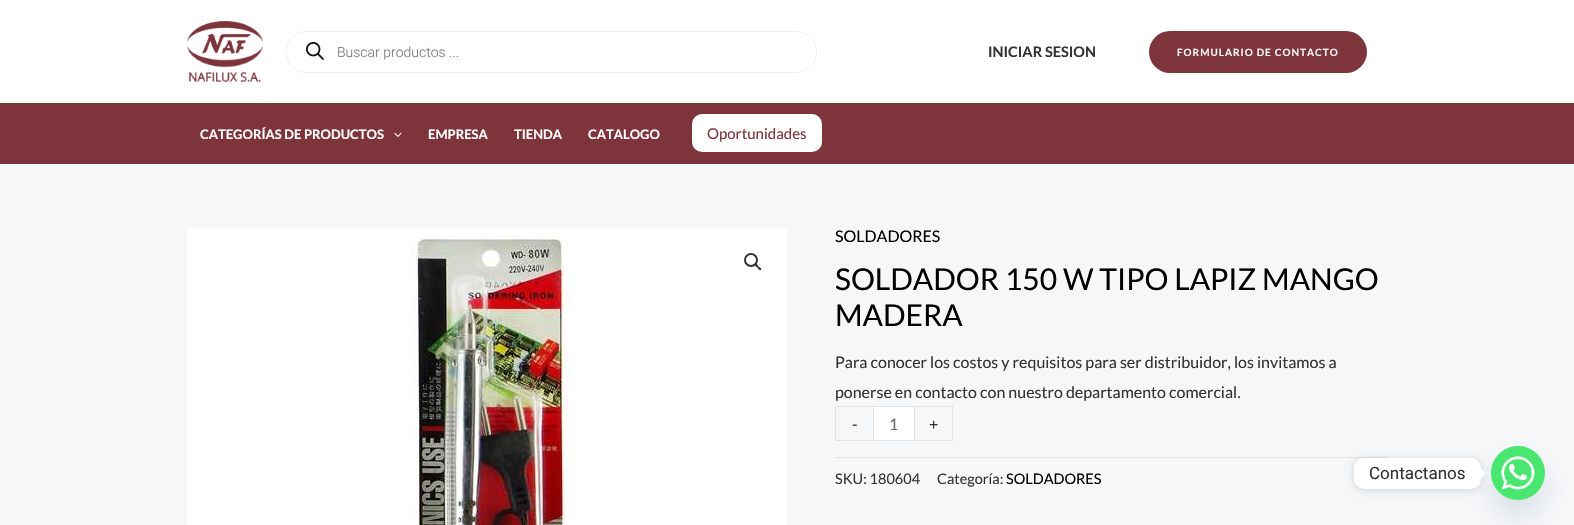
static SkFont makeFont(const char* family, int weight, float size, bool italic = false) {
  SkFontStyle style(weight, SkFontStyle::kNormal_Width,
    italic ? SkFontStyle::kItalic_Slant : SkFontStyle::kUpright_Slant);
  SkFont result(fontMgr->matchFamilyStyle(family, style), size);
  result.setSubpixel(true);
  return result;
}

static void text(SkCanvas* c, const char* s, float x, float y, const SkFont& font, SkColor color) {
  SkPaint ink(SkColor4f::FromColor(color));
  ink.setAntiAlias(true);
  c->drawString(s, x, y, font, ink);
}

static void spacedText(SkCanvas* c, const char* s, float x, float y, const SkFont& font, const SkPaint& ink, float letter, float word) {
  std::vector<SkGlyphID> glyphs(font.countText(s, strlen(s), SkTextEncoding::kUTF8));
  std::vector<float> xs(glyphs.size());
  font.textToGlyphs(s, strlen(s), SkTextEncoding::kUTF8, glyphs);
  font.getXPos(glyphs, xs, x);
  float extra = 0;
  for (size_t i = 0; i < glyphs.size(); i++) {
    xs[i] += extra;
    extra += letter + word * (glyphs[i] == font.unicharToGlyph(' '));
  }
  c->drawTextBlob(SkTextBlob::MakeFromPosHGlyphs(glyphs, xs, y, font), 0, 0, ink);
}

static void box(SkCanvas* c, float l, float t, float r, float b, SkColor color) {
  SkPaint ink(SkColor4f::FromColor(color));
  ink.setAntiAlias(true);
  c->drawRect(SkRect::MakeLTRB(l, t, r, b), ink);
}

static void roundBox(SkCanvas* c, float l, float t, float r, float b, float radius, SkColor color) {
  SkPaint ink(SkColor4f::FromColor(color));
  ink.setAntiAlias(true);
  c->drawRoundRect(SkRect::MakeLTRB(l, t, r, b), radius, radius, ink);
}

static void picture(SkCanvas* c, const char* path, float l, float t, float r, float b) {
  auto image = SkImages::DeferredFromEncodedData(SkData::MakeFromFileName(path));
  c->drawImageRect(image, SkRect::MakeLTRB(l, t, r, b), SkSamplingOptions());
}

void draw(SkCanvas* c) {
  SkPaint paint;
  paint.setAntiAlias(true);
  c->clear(0xfff5f7f9);
  box(c, 0, 0, 1574, 103, 0xffffffff);
  picture(c, "img_01.png", 187, 21, 263, 82);
  paint.setStyle(SkPaint::kStroke_Style);
  paint.setStrokeWidth(1);
  paint.setColor(0xffeeeeee);
  c->drawRoundRect(SkRect::MakeLTRB(286.5f, 31.5f, 816.5f, 72.5f), 20.5f, 20.5f, paint);
  roundBox(c, 287, 32, 816, 72, 20, 0xffffffff);
  picture(c, "img_02.png", 306, 42, 324, 60);
  SkFont face1 = makeFont("Roboto", 300, 14);
  text(c, "Buscar productos ...", 337, 57, face1, 0xff777777);
  SkFont face2 = makeFont("Lato", 700, 14.5f);
  text(c, "INICIAR SESION", 988, 57, face2, 0xff333333);
  roundBox(c, 1149, 31, 1367, 73, 21, 0xff7d343b);
  SkFont face3 = makeFont("Lato", 700, 10);
  paint.setStyle(SkPaint::kFill_Style);
  paint.setColor(0xfff5f7f9);
  spacedText(c, "FORMULARIO DE CONTACTO", 1177, 56, face3, paint, 1, 0);
  box(c, 0, 103, 1574, 164, 0xff7d343b);
  SkFont face4 = makeFont("Lato", 700, 13);
  text(c, "CATEGORÍAS DE PRODUCTOS", 200, 139, face4, 0xffffffff);
  picture(c, "img_03.png", 394, 132, 402, 137);
  text(c, "EMPRESA", 428, 139, face4, 0xffffffff);
  text(c, "TIENDA", 514, 139, face4, 0xffffffff);
  text(c, "CATALOGO", 588, 139, face4, 0xffffffff);
  roundBox(c, 692, 114, 822, 152, 10, 0xffffffff);
  SkFont face5 = makeFont("Lato", 400, 15);
  text(c, "Oportunidades", 707, 139, face5, 0xff7d343b);
  picture(c, "img_04.png", 187, 228, 787, 525);
  paint.setStyle(SkPaint::kStroke_Style);
  paint.setStrokeWidth(2);
  paint.setColor(0xff333333);
  c->drawCircle(751, 260, 6, paint);
  paint.setStyle(SkPaint::kFill_Style);
  c->drawPath(SkPathBuilder().moveTo(755, 264).cubicTo(756.5f, 263, 758, 265.5f, 758.5f, 266.5f).cubicTo(759.5f, 267, 762, 268.5f, 761, 270).cubicTo(759.5f, 271, 758, 268.5f, 757.5f, 267.5f).cubicTo(756.5f, 267, 754, 265.5f, 755, 264).close().detach(), paint);
  SkFont face6 = makeFont("Lato", 400, 16);
  text(c, "SOLDADORES", 835, 242, face6, 0xff000000);
  SkFont face7 = makeFont("Lato", 400, 30);
  text(c, "SOLDADOR 150 W TIPO LAPIZ MANGO", 835, 290, face7, 0xff000000);
  text(c, "MADERA", 835, 326, face7, 0xff000000);
  text(c, "Para conocer los costos y requisitos para ser distribuidor, los invitamos a", 835, 368, face6, 0xff333333);
  text(c, "ponerse en contacto con nuestro departamento comercial.", 835, 398, face6, 0xff333333);
  box(c, 835, 406, 873, 407, 0xffe2e2e2);
  box(c, 835, 440, 873, 441, 0xffe2e2e2);
  box(c, 835, 406, 836, 441, 0xffe2e2e2);
  text(c, "-", 852, 430, face6, 0xff333333);
  paint.setColor(0xffffffff);
  c->drawRect(SkRect::MakeLTRB(873.5f, 406.5f, 914.5f, 440.5f), paint);
  paint.setStyle(SkPaint::kStroke_Style);
  paint.setStrokeWidth(1);
  paint.setColor(0xffe2e2e2);
  c->drawRect(SkRect::MakeLTRB(873.5f, 406.5f, 914.5f, 440.5f), paint);
  text(c, "1", 889, 430, face6, 0xff666666);
  box(c, 915, 406, 953, 407, 0xffe2e2e2);
  box(c, 952, 406, 953, 441, 0xffe2e2e2);
  box(c, 915, 440, 953, 441, 0xffe2e2e2);
  text(c, "+", 929, 430, face6, 0xff333333);
  box(c, 835, 457, 1387, 458, 0xffe2e2e2);
  SkFont face8 = makeFont("Lato", 400, 14.5f);
  text(c, "SKU: 180604", 835, 484, face8, 0xff333333);
  text(c, "Categoría:", 937, 484, face8, 0xff333333);
  text(c, "SOLDADORES", 1006, 484, face8, 0xff000000);
  paint.setStyle(SkPaint::kFill_Style);
  paint.setColor(0x2949687e);
  paint.setMaskFilter(SkMaskFilter::MakeBlur(kNormal_SkBlurStyle, 12));
  c->drawRoundRect(SkRect::MakeLTRB(1491, 462, 1545, 516), 27, 27, paint);
  paint.setMaskFilter(nullptr);
  picture(c, "img_05.png", 1491, 446, 1545, 500);
  paint.setColor(0x26000000);
  paint.setMaskFilter(SkMaskFilter::MakeBlur(kNormal_SkBlurStyle, 4));
  c->drawRoundRect(SkRect::MakeLTRB(1354, 459, 1481, 490), 10, 10, paint);
  paint.setMaskFilter(nullptr);
  roundBox(c, 1354, 458, 1481, 489, 10, 0xffffffff);
  SkFont face9 = makeFont("Roboto", 400, 17);
  text(c, "Contactanos", 1369, 479, face9, 0xff333333);
  paint.setColor(0xffffffff);
  c->drawPath(SkPathBuilder().moveTo(1481, 478.5f).lineTo(1481, 468.5f).lineTo(1486, 473.5f).close().detach(), paint);
}
